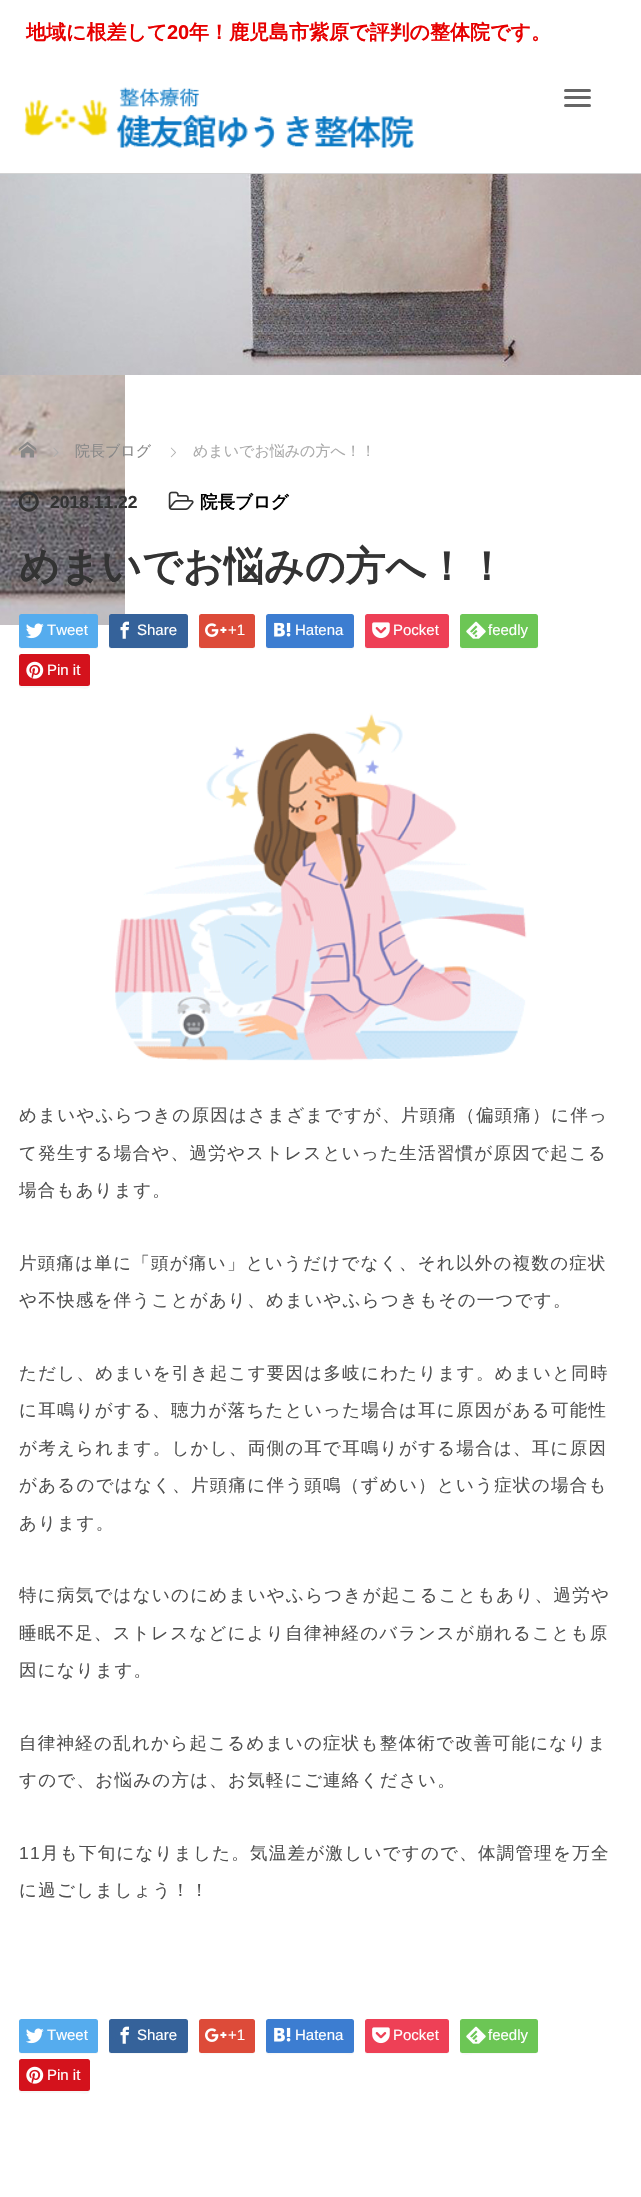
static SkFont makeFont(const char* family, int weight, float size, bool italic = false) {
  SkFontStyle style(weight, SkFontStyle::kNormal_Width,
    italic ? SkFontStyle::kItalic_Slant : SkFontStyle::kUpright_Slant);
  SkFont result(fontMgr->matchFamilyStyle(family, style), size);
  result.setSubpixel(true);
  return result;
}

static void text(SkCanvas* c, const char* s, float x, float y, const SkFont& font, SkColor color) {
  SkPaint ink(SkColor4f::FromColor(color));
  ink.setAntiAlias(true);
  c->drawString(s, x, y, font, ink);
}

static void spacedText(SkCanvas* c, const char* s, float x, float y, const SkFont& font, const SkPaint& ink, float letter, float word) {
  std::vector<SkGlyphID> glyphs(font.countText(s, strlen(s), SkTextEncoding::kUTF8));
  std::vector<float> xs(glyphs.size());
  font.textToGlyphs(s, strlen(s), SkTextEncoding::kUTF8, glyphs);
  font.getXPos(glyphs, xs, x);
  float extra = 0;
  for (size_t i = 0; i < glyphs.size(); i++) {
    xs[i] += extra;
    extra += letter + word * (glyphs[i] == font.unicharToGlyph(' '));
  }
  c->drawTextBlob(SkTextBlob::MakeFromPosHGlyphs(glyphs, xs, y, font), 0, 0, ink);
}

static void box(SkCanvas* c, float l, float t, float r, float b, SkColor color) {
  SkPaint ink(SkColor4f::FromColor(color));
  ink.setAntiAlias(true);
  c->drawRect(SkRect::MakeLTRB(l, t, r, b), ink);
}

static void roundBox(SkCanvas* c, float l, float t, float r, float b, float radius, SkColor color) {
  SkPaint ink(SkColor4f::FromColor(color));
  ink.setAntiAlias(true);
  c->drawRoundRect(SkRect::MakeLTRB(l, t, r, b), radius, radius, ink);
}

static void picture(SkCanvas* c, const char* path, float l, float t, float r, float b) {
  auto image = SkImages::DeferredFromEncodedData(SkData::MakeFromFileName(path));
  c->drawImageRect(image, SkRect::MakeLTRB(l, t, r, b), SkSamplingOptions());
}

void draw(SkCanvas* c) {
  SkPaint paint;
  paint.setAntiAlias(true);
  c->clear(0xffffffff);
  box(c, 0, 173, 641, 174, 0xffd3d3d3);
  SkFont face1 = makeFont("WenQuanYi Zen Hei", 700, 20);
  text(c, "地域に根差して", 26, 39, face1, 0xffe70000);
  SkFont face2 = makeFont("Liberation Sans", 700, 20);
  text(c, "20", 167, 39, face2, 0xffe70000);
  text(c, "年！鹿児島市紫原で評判の整体院です。", 189, 39, face1, 0xffe70000);
  picture(c, "img_01.png", 24, 87, 414, 148);
  roundBox(c, 564, 89, 591, 92, 1.5f, 0xff666666);
  roundBox(c, 564, 96, 591, 99, 1.5f, 0xff666666);
  roundBox(c, 564, 104, 591, 107, 1.5f, 0xff666666);
  picture(c, "img_02.png", 0, 174, 641, 375);
  picture(c, "img_03.png", 0, 375, 125, 625);
  picture(c, "img_04.png", 18, 441, 37, 458);
  picture(c, "img_05.png", 53, 447, 59, 457);
  SkFont face3 = makeFont("WenQuanYi Zen Hei", 500, 15);
  text(c, "院長ブログ", 75, 456, face3, 0xff888888);
  picture(c, "img_06.png", 170, 447, 176, 458);
  text(c, "めまいでお悩みの方へ！！", 193, 456, face3, 0xffaaaaaa);
  picture(c, "img_07.png", 18, 491, 39, 512);
  SkFont face4 = makeFont("Liberation Sans", 700, 17.5f);
  text(c, "2018.11.22", 50, 508, face4, 0xff333333);
  picture(c, "img_08.png", 168, 491, 194, 510);
  SkFont face5 = makeFont("WenQuanYi Zen Hei", 700, 17.5f);
  text(c, "院長ブログ", 200, 508, face5, 0xff000000);
  SkFont face6 = makeFont("WenQuanYi Zen Hei", 700, 40);
  text(c, "めまいでお悩みの方へ！！", 19, 580, face6, 0xff333333);
  paint.setColor(0x08000000);
  c->drawPath(SkPathBuilder().moveTo(19, 646).cubicTo(19, 648, 20, 649, 22, 649).lineTo(96, 649).cubicTo(97, 649, 98, 648, 98, 646).lineTo(98, 618).lineTo(97, 616).lineTo(98, 640).cubicTo(98, 651, 96, 648, 83, 648).lineTo(34, 648).cubicTo(33, 648, 21, 650, 19, 646).close().detach(), paint);
  roundBox(c, 19, 614, 98, 648, 2.5f, 0xff55acee);
  picture(c, "img_09.png", 26, 623, 44, 639);
  SkFont face7 = makeFont("Liberation Sans", 400, 15);
  text(c, "Tweet", 47, 635, face7, 0xffffffff);
  paint.setColor(0xfff7f7f7);
  c->drawPath(SkPathBuilder().moveTo(109, 646).cubicTo(109, 648, 110, 649, 112, 649).lineTo(186, 649).cubicTo(187, 649, 188, 648, 188, 646).lineTo(188, 618).lineTo(187, 616).lineTo(188, 640).cubicTo(188, 651, 186, 648, 173, 648).lineTo(124, 648).cubicTo(123, 648, 111, 650, 109, 646).close().detach(), paint);
  roundBox(c, 109, 614, 188, 648, 2.5f, 0xff35629a);
  picture(c, "img_10.png", 120, 621, 129, 639);
  text(c, "Share", 137, 635, face7, 0xffffffff);
  c->drawPath(SkPathBuilder().moveTo(199, 646).cubicTo(199, 651, 208, 649, 210, 649).lineTo(244, 649).cubicTo(249, 649, 255, 651, 255, 645).lineTo(255, 646).cubicTo(254, 647, 253, 647, 252, 648).lineTo(201, 647).close().detach(), paint);
  roundBox(c, 199, 614, 255, 648, 2.5f, 0xffdd4b39);
  picture(c, "img_11.png", 205, 623, 227, 637);
  text(c, "+1", 228, 635, face7, 0xffffffff);
  c->drawPath(SkPathBuilder().moveTo(266, 616).lineTo(266, 637).cubicTo(266, 653, 264, 649, 282, 649).lineTo(338, 649).cubicTo(356, 649, 354, 653, 354, 637).lineTo(354, 616).lineTo(354, 645).cubicTo(354, 646, 353, 648, 351, 648).lineTo(269, 648).cubicTo(267, 648, 266, 646, 266, 645).close().detach(), paint);
  roundBox(c, 266, 614, 354, 648, 2.5f, 0xff3c7dd1);
  picture(c, "img_12.png", 274, 622, 291, 637);
  text(c, "Hatena", 295, 635, face7, 0xffffffff);
  c->drawPath(SkPathBuilder().moveTo(365, 645).cubicTo(365, 647, 365, 649, 367, 649).lineTo(446, 649).cubicTo(450, 649, 449, 643, 449, 642).lineTo(449, 616).lineTo(449, 645).cubicTo(449, 646, 448, 648, 446, 648).lineTo(368, 648).cubicTo(366, 648, 365, 646, 365, 645).close().detach(), paint);
  roundBox(c, 365, 614, 449, 648, 2.5f, 0xffee4056);
  picture(c, "img_13.png", 372, 622, 390, 639);
  text(c, "Pocket", 393, 635, face7, 0xffffffff);
  c->drawPath(SkPathBuilder().moveTo(460, 645).cubicTo(460, 652, 469, 649, 475, 649).lineTo(523, 649).cubicTo(542, 649, 538, 651, 538, 632).cubicTo(538, 629, 539, 618, 537, 616).lineTo(538, 640).cubicTo(538, 651, 536, 648, 523, 648).lineTo(475, 648).cubicTo(469, 648, 460, 650, 460, 645).close().detach(), paint);
  roundBox(c, 460, 614, 538, 648, 2.5f, 0xff6cc655);
  picture(c, "img_14.png", 466, 621, 486, 639);
  text(c, "feedly", 488, 635, face7, 0xffffffff);
  c->drawPath(SkPathBuilder().moveTo(19, 685).cubicTo(19, 686, 19, 688, 21, 688).lineTo(76, 688).cubicTo(83, 688, 90, 691, 90, 684).lineTo(89, 686).lineTo(88, 686).lineTo(21, 686).close().detach(), paint);
  roundBox(c, 19, 654, 90, 686, 2.5f, 0xffd4121c);
  picture(c, "img_15.png", 26, 661, 44, 679);
  text(c, "Pin it", 47, 675, face7, 0xffffffff);
  picture(c, "img_16.png", 115, 713, 527, 1061);
  SkFont face8 = makeFont("WenQuanYi Zen Hei", 500, 17.5f);
  paint.setColor(0xff505050);
  spacedText(c, "めまいやふらつきの原因はさまざまですが、片頭痛（偏頭痛）に伴っ", 19, 1121, face8, paint, 1.25f, 0);
  spacedText(c, "て発生する場合や、過労やストレスといった生活習慣が原因で起こる", 19, 1159, face8, paint, 1.25f, 0);
  spacedText(c, "場合もあります。", 19, 1196, face8, paint, 1.25f, 0);
  spacedText(c, "片頭痛は単に「頭が痛い」というだけでなく、それ以外の複数の症状", 19, 1269, face8, paint, 1.25f, 0);
  spacedText(c, "や不快感を伴うことがあり、めまいやふらつきもその一つです。", 19, 1306, face8, paint, 1.25f, 0);
  spacedText(c, "ただし、めまいを引き起こす要因は多岐にわたります。めまいと同時", 19, 1379, face8, paint, 1.25f, 0);
  spacedText(c, "に耳鳴りがする、聴力が落ちたといった場合は耳に原因がある可能性", 19, 1416, face8, paint, 1.25f, 0);
  spacedText(c, "が考えられます。しかし、両側の耳で耳鳴りがする場合は、耳に原因", 19, 1454, face8, paint, 1.25f, 0);
  spacedText(c, "があるのではなく、片頭痛に伴う頭鳴（ずめい）という症状の場合も", 19, 1491, face8, paint, 1.25f, 0);
  spacedText(c, "あります。", 19, 1529, face8, paint, 1.25f, 0);
  spacedText(c, "特に病気ではないのにめまいやふらつきが起こることもあり、過労や", 19, 1601, face8, paint, 1.25f, 0);
  spacedText(c, "睡眠不足、ストレスなどにより自律神経のバランスが崩れることも原", 19, 1639, face8, paint, 1.25f, 0);
  spacedText(c, "因になります。", 19, 1676, face8, paint, 1.25f, 0);
  spacedText(c, "自律神経の乱れから起こるめまいの症状も整体術で改善可能になりま", 19, 1749, face8, paint, 1.25f, 0);
  spacedText(c, "すので、お悩みの方は、お気軽にご連絡ください。", 19, 1786, face8, paint, 1.25f, 0);
  SkFont face9 = makeFont("Liberation Sans", 400, 17.5f);
  spacedText(c, "11", 19, 1859, face9, paint, 1.25f, 0);
  spacedText(c, "月も下旬になりました。気温差が激しいですので、体調管理を万全", 41, 1859, face8, paint, 1.25f, 0);
  spacedText(c, "に過ごしましょう！！", 19, 1896, face8, paint, 1.25f, 0);
  paint.setColor(0xfff7f7f7);
  c->drawPath(SkPathBuilder().moveTo(19, 2051).lineTo(19, 2052).cubicTo(19, 2053, 20, 2054, 22, 2054).lineTo(96, 2054).cubicTo(97, 2054, 98, 2053, 98, 2052).lineTo(98, 2022).lineTo(97, 2021).lineTo(98, 2045).cubicTo(98, 2056, 96, 2052, 83, 2052).lineTo(34, 2052).cubicTo(33, 2052, 21, 2055, 19, 2051).close().detach(), paint);
  roundBox(c, 19, 2019, 98, 2053, 2.5f, 0xff55acee);
  picture(c, "img_09.png", 26, 2028, 44, 2044);
  text(c, "Tweet", 47, 2040, face7, 0xffffffff);
  c->drawPath(SkPathBuilder().moveTo(109, 2051).lineTo(109, 2052).cubicTo(109, 2053, 110, 2054, 112, 2054).lineTo(186, 2054).cubicTo(187, 2054, 188, 2053, 188, 2052).lineTo(188, 2022).lineTo(187, 2021).lineTo(188, 2045).cubicTo(188, 2056, 186, 2052, 173, 2052).lineTo(124, 2052).cubicTo(123, 2052, 111, 2055, 109, 2051).close().detach(), paint);
  roundBox(c, 109, 2019, 188, 2053, 2.5f, 0xff35629a);
  picture(c, "img_10.png", 120, 2026, 129, 2044);
  text(c, "Share", 137, 2040, face7, 0xffffffff);
  c->drawPath(SkPathBuilder().moveTo(199, 2051).cubicTo(199, 2056, 208, 2054, 210, 2054).lineTo(244, 2054).cubicTo(249, 2054, 255, 2056, 255, 2050).lineTo(255, 2051).cubicTo(254, 2052, 253, 2052, 252, 2052).lineTo(201, 2052).close().detach(), paint);
  roundBox(c, 199, 2019, 255, 2053, 2.5f, 0xffdd4b39);
  picture(c, "img_11.png", 205, 2028, 227, 2042);
  text(c, "+1", 228, 2040, face7, 0xffffffff);
  c->drawPath(SkPathBuilder().moveTo(266, 2021).lineTo(266, 2042).cubicTo(266, 2058, 264, 2054, 282, 2054).lineTo(338, 2054).cubicTo(356, 2054, 354, 2058, 354, 2042).lineTo(354, 2021).lineTo(354, 2050).cubicTo(354, 2051, 353, 2052, 351, 2052).lineTo(269, 2052).cubicTo(267, 2052, 266, 2051, 266, 2050).close().detach(), paint);
  roundBox(c, 266, 2019, 354, 2053, 2.5f, 0xff3c7dd1);
  picture(c, "img_12.png", 274, 2027, 291, 2042);
  text(c, "Hatena", 295, 2040, face7, 0xffffffff);
  c->drawPath(SkPathBuilder().moveTo(365, 2050).cubicTo(365, 2052, 365, 2054, 367, 2054).lineTo(446, 2054).cubicTo(450, 2054, 449, 2048, 449, 2047).lineTo(449, 2021).lineTo(449, 2050).cubicTo(449, 2051, 448, 2052, 446, 2052).lineTo(368, 2052).cubicTo(366, 2052, 365, 2051, 365, 2050).close().detach(), paint);
  roundBox(c, 365, 2019, 449, 2053, 2.5f, 0xffee4056);
  picture(c, "img_13.png", 372, 2027, 390, 2044);
  text(c, "Pocket", 393, 2040, face7, 0xffffffff);
  c->drawPath(SkPathBuilder().moveTo(460, 2050).cubicTo(460, 2057, 469, 2054, 475, 2054).lineTo(523, 2054).cubicTo(542, 2054, 538, 2056, 538, 2037).cubicTo(538, 2034, 539, 2023, 537, 2021).lineTo(538, 2045).cubicTo(538, 2056, 536, 2052, 523, 2052).lineTo(475, 2052).cubicTo(469, 2052, 460, 2055, 460, 2050).close().detach(), paint);
  roundBox(c, 460, 2019, 538, 2053, 2.5f, 0xff6cc655);
  picture(c, "img_14.png", 466, 2026, 486, 2044);
  text(c, "feedly", 488, 2040, face7, 0xffffffff);
  c->drawPath(SkPathBuilder().moveTo(19, 2090).cubicTo(19, 2091, 19, 2093, 21, 2093).lineTo(76, 2093).cubicTo(83, 2093, 90, 2096, 90, 2089).lineTo(89, 2091).lineTo(88, 2091).lineTo(21, 2091).close().detach(), paint);
  roundBox(c, 19, 2059, 90, 2091, 2.5f, 0xffd4121c);
  picture(c, "img_15.png", 26, 2066, 44, 2084);
  text(c, "Pin it", 47, 2080, face7, 0xffffffff);
}
